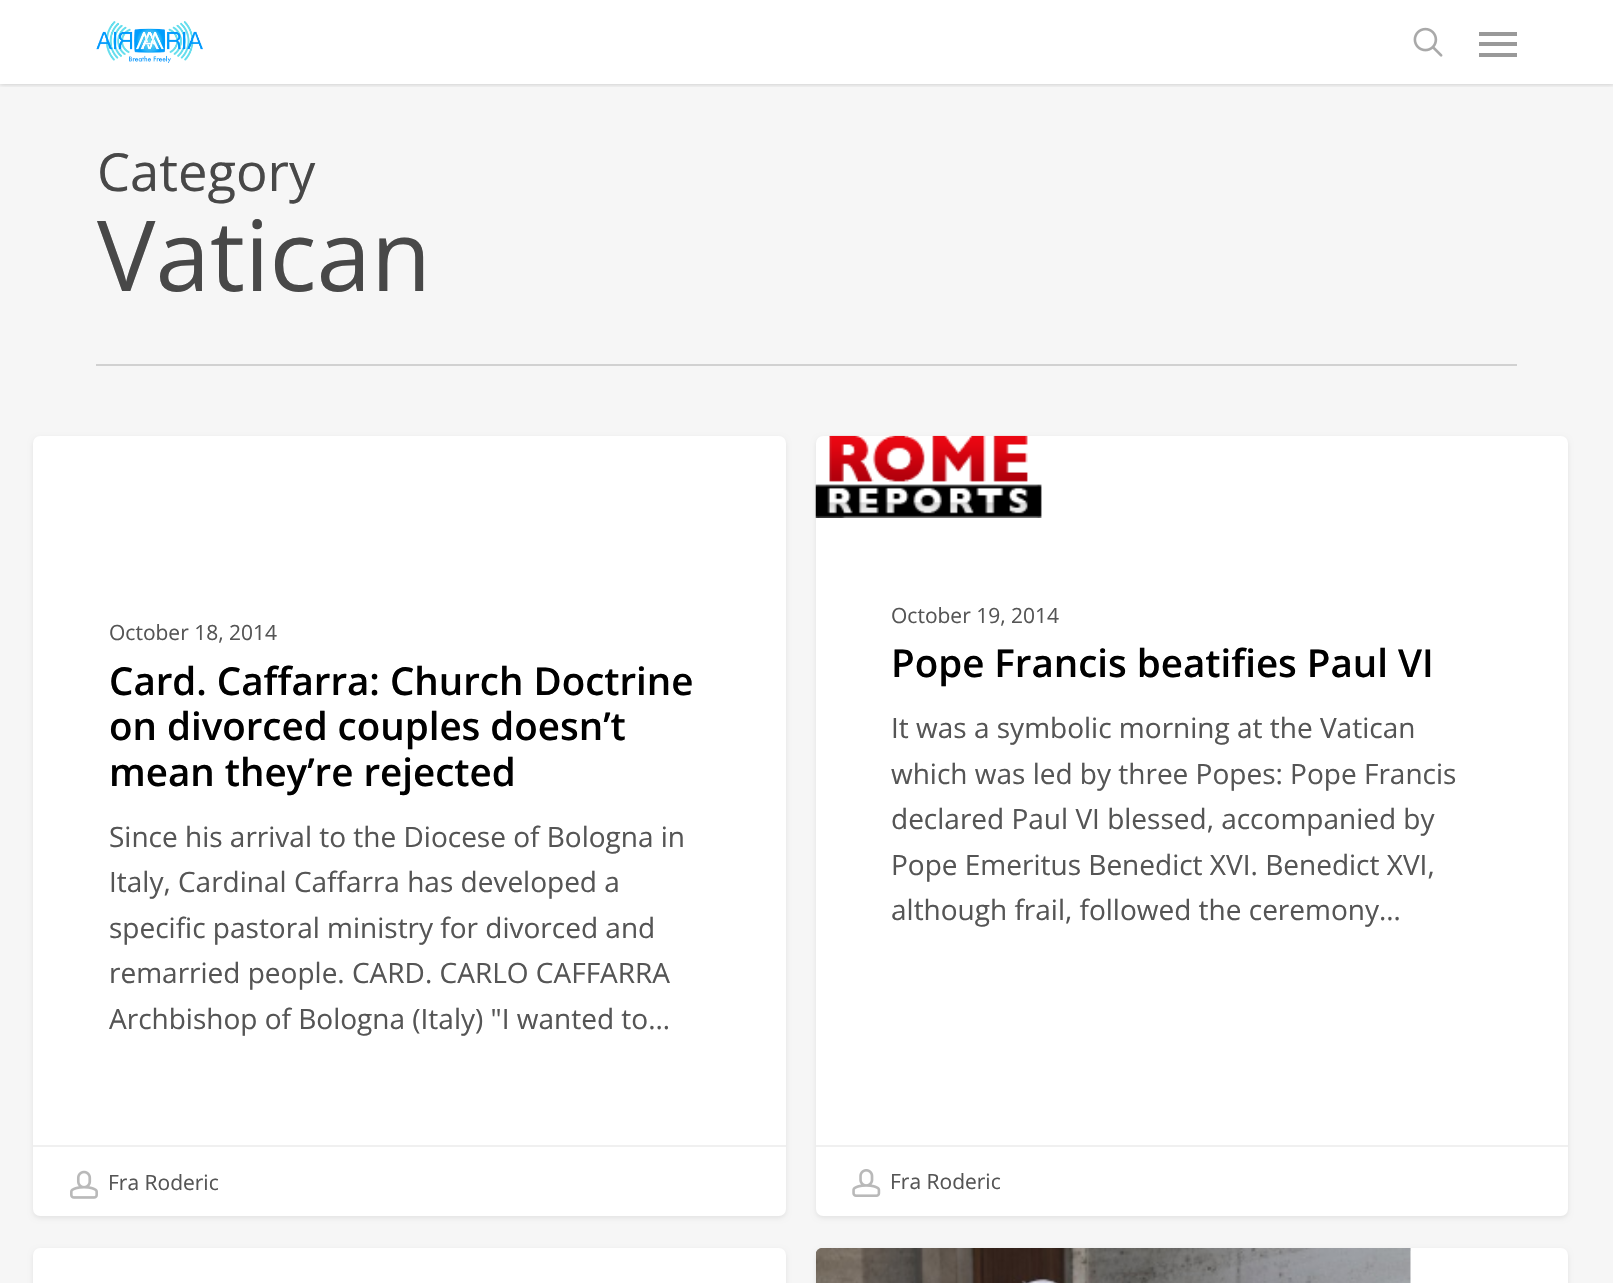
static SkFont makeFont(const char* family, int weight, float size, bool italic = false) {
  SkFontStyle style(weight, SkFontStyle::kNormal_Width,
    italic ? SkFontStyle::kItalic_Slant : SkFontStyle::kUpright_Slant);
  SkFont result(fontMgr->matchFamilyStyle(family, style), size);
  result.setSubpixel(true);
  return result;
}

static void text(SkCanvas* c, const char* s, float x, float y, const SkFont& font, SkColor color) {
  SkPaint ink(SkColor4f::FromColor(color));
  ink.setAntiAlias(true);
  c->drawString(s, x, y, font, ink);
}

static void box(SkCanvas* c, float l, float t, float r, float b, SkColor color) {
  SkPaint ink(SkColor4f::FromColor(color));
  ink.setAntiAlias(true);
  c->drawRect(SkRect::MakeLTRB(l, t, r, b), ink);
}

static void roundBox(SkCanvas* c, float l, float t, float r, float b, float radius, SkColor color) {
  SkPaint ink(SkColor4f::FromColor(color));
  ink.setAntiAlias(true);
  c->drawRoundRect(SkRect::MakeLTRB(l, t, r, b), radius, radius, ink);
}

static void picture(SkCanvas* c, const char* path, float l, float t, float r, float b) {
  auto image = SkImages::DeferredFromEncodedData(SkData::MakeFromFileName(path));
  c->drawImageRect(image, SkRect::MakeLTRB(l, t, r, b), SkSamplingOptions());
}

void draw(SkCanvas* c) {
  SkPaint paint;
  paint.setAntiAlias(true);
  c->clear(0xffffffff);
  box(c, 0, 84, 1613, 1283, 0xfff6f6f6);
  c->save();
  c->clipRect(SkRect::MakeLTRB(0, 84, 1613, 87));
  paint.setColor(0x38000000);
  paint.setMaskFilter(SkMaskFilter::MakeBlur(kNormal_SkBlurStyle, 2.5f));
  c->drawRect(SkRect::MakeLTRB(0, 0, 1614, 84), paint);
  paint.setMaskFilter(nullptr);
  c->restore();
  picture(c, "img_01.png", 96, 21, 203, 63);
  picture(c, "img_02.png", 1413, 27, 1443, 57);
  box(c, 1479, 32, 1517, 36, 0xff999999);
  box(c, 1479, 53, 1517, 57, 0xff999999);
  box(c, 1479, 42, 1517, 46, 0xff999999);
  box(c, 96, 364, 1517, 366, 0xffd1d1d1);
  SkFont face1 = makeFont("Open Sans", 400, 52.5f);
  text(c, "Category", 97, 191, face1, 0xff484848);
  SkFont face2 = makeFont("Open Sans", 400, 98);
  text(c, "Vatican", 97, 291, face2, 0xff484848);
  paint.setColor(0x14000000);
  paint.setMaskFilter(SkMaskFilter::MakeBlur(kNormal_SkBlurStyle, 2.5f));
  c->drawRoundRect(SkRect::MakeLTRB(33, 438, 786, 1218), 7, 7, paint);
  paint.setMaskFilter(nullptr);
  roundBox(c, 33, 436, 786, 1216, 7, 0xffffffff);
  SkFont face3 = makeFont("Open Sans", 400, 21);
  text(c, "October 18, 2014", 109, 640, face3, 0xff555555);
  SkFont face4 = makeFont("Open Sans", 600, 38.5f);
  text(c, "Card. Caffarra: Church Doctrine", 109, 695, face4, 0xff000000);
  text(c, "on divorced couples doesn’t", 109, 740, face4, 0xff000000);
  text(c, "mean they’re rejected", 109, 786, face4, 0xff000000);
  SkFont face5 = makeFont("Open Sans", 400, 28);
  text(c, "Since his arrival to the Diocese of Bologna in", 109, 847, face5, 0xff555555);
  text(c, "Italy, Cardinal Caffarra has developed a", 109, 892, face5, 0xff555555);
  text(c, "specific pastoral ministry for divorced and", 109, 938, face5, 0xff555555);
  text(c, "remarried people. CARD. CARLO CAFFARRA", 109, 983, face5, 0xff555555);
  text(c, "Archbishop of Bologna (Italy) \"I wanted to…", 109, 1029, face5, 0xff555555);
  box(c, 33, 1145, 786, 1147, 0xfff0f0f0);
  picture(c, "img_03.png", 70, 1170, 98, 1199);
  text(c, "Fra Roderic", 108, 1190, face3, 0xff555555);
  paint.setMaskFilter(SkMaskFilter::MakeBlur(kNormal_SkBlurStyle, 2.5f));
  c->drawRoundRect(SkRect::MakeLTRB(816, 438, 1568, 1218), 7, 7, paint);
  paint.setMaskFilter(nullptr);
  roundBox(c, 816, 436, 1568, 1216, 7, 0xffffffff);
  picture(c, "img_04.png", 815, 435, 1042, 518);
  text(c, "October 19, 2014", 891, 623, face3, 0xff555555);
  text(c, "Pope Francis beatifies Paul VI", 891, 677, face4, 0xff000000);
  text(c, "It was a symbolic morning at the Vatican", 891, 738, face5, 0xff555555);
  text(c, "which was led by three Popes: Pope Francis", 891, 784, face5, 0xff555555);
  text(c, "declared Paul VI blessed, accompanied by", 891, 829, face5, 0xff555555);
  text(c, "Pope Emeritus Benedict XVI. Benedict XVI,", 891, 875, face5, 0xff555555);
  text(c, "although frail, followed the ceremony…", 891, 920, face5, 0xff555555);
  box(c, 816, 1145, 1568, 1147, 0xfff0f0f0);
  picture(c, "img_05.png", 852, 1169, 881, 1197);
  text(c, "Fra Roderic", 890, 1189, face3, 0xff555555);
  paint.setMaskFilter(SkMaskFilter::MakeBlur(kNormal_SkBlurStyle, 2.5f));
  c->drawRoundRect(SkRect::MakeLTRB(33, 1250, 786, 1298), 7, 7, paint);
  paint.setMaskFilter(nullptr);
  roundBox(c, 33, 1248, 786, 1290, 7, 0xffffffff);
  paint.setMaskFilter(SkMaskFilter::MakeBlur(kNormal_SkBlurStyle, 2.5f));
  c->drawRoundRect(SkRect::MakeLTRB(816, 1250, 1568, 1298), 7, 7, paint);
  paint.setMaskFilter(nullptr);
  roundBox(c, 816, 1248, 1568, 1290, 7, 0xffffffff);
  picture(c, "img_06.png", 816, 1248, 1411, 1283);
}
